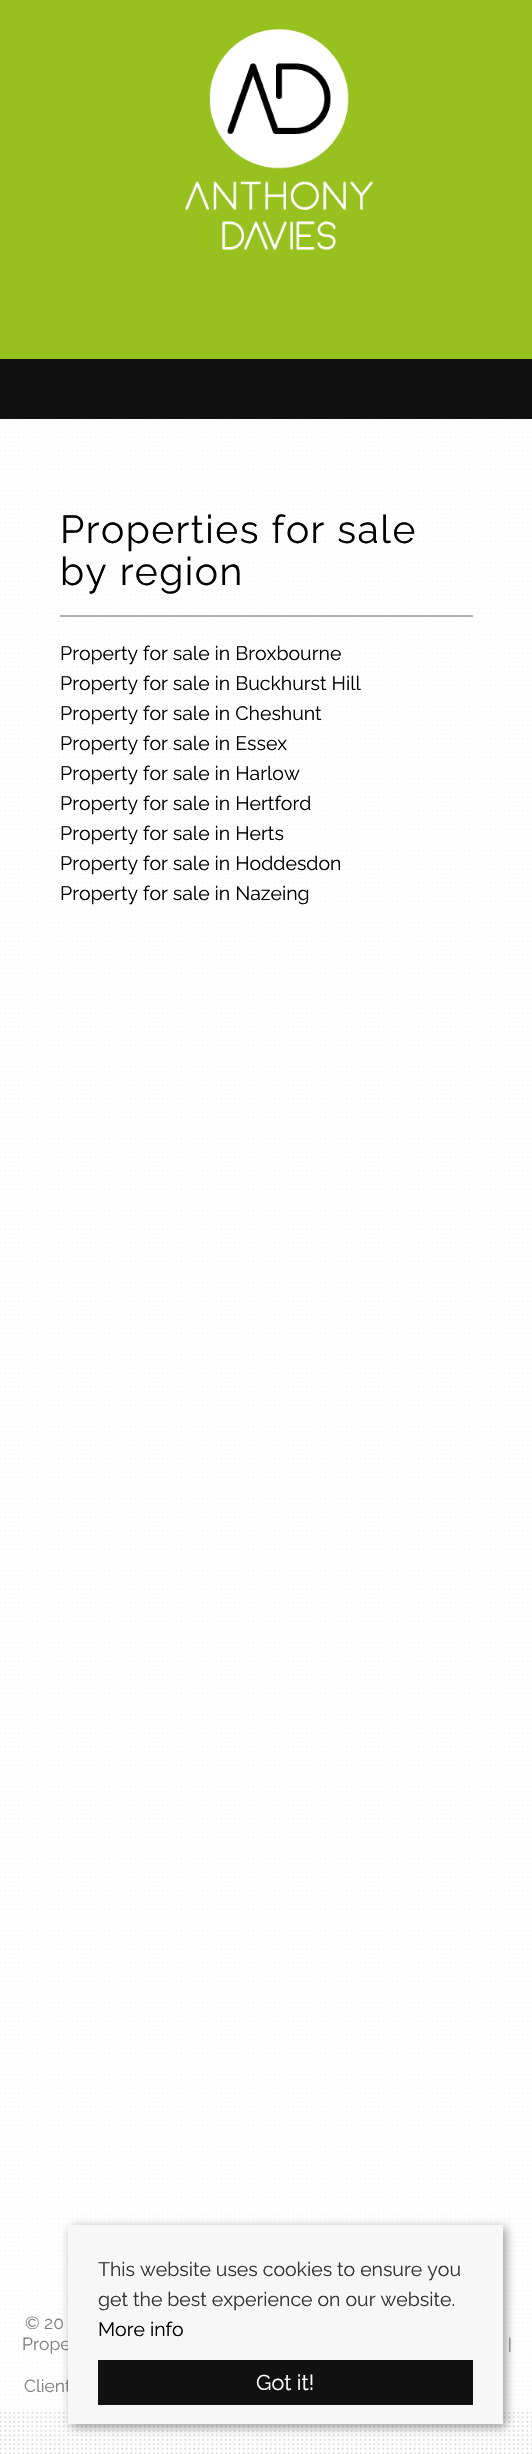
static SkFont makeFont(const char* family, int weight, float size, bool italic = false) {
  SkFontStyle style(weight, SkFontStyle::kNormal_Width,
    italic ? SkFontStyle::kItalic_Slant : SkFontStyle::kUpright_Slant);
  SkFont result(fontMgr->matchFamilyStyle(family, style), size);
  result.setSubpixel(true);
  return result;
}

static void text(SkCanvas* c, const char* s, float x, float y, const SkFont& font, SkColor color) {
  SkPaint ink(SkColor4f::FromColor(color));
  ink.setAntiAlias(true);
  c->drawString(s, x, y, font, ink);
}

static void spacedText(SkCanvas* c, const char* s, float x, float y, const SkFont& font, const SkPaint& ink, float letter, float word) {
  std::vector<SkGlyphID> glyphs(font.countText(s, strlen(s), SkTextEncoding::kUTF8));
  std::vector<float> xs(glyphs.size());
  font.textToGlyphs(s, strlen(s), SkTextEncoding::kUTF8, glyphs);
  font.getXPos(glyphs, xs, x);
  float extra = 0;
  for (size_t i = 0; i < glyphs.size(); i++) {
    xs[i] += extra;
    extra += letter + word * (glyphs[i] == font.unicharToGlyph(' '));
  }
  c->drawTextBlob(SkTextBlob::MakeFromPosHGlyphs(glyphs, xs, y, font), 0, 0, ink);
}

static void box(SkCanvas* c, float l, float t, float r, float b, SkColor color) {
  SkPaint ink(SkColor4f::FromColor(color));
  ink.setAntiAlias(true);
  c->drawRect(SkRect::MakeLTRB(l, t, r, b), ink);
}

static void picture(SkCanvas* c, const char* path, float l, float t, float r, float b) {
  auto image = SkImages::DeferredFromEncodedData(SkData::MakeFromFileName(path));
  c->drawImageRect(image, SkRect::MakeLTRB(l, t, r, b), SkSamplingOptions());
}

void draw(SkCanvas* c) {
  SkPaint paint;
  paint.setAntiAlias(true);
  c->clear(0xffffffff);
  picture(c, "img_01.png", 0, 419, 532, 2454);
  box(c, 0, 0, 532, 359, 0xff96c11f);
  picture(c, "img_02.png", 185, 28, 373, 251);
  box(c, 0, 359, 532, 419, 0xff111111);
  box(c, 0, 419, 532, 2412, 0xccffffff);
  box(c, 60, 615, 473, 617, 0x4d000000);
  SkFont face1 = makeFont("Raleway", 400, 39);
  paint.setColor(0xff000000);
  spacedText(c, "Properties for sale", 60, 543, face1, paint, 1.5f, 0);
  spacedText(c, "by region", 60, 585, face1, paint, 1.5f, 0);
  SkFont face2 = makeFont("Raleway", 400, 19.5f);
  text(c, "Property for sale in Broxbourne", 60, 660, face2, 0xff000000);
  text(c, "Property for sale in Buckhurst Hill", 60, 690, face2, 0xff000000);
  text(c, "Property for sale in Cheshunt", 60, 720, face2, 0xff000000);
  text(c, "Property for sale in Essex", 60, 750, face2, 0xff000000);
  text(c, "Property for sale in Harlow", 60, 780, face2, 0xff000000);
  text(c, "Property for sale in Hertford", 60, 810, face2, 0xff000000);
  text(c, "Property for sale in Herts", 60, 840, face2, 0xff000000);
  text(c, "Property for sale in Hoddesdon", 60, 870, face2, 0xff000000);
  text(c, "Property for sale in Nazeing", 60, 900, face2, 0xff000000);
  SkFont face3 = makeFont("Raleway", 400, 17.5f);
  text(c, "© 20", 25, 2329, face3, 0xff7f7f7f);
  text(c, "Prope", 22, 2350, face3, 0xff7f7f7f);
  SkFont face4 = makeFont("Raleway", 400, 16);
  text(c, "|", 508, 2350, face4, 0xff7f7f7f);
  text(c, "Client", 24, 2392, face3, 0xff7f7f7f);
  paint.setColor(0x66000000);
  paint.setMaskFilter(SkMaskFilter::MakeBlur(kNormal_SkBlurStyle, 5));
  c->drawRect(SkRect::MakeLTRB(71, 2228, 506, 2427), paint);
  paint.setMaskFilter(nullptr);
  box(c, 68, 2225, 503, 2424, 0xfff7f7f7);
  text(c, "This website uses cookies to ensure you", 98, 2276, face2, 0xff333333);
  text(c, "get the best experience on our website.", 98, 2306, face2, 0xff333333);
  text(c, "More info", 98, 2336, face2, 0xff000000);
  box(c, 98, 2360, 473, 2405, 0xff111111);
  SkFont face5 = makeFont("Raleway", 400, 21.5f);
  text(c, "Got it!", 256, 2390, face5, 0xffffffff);
}
